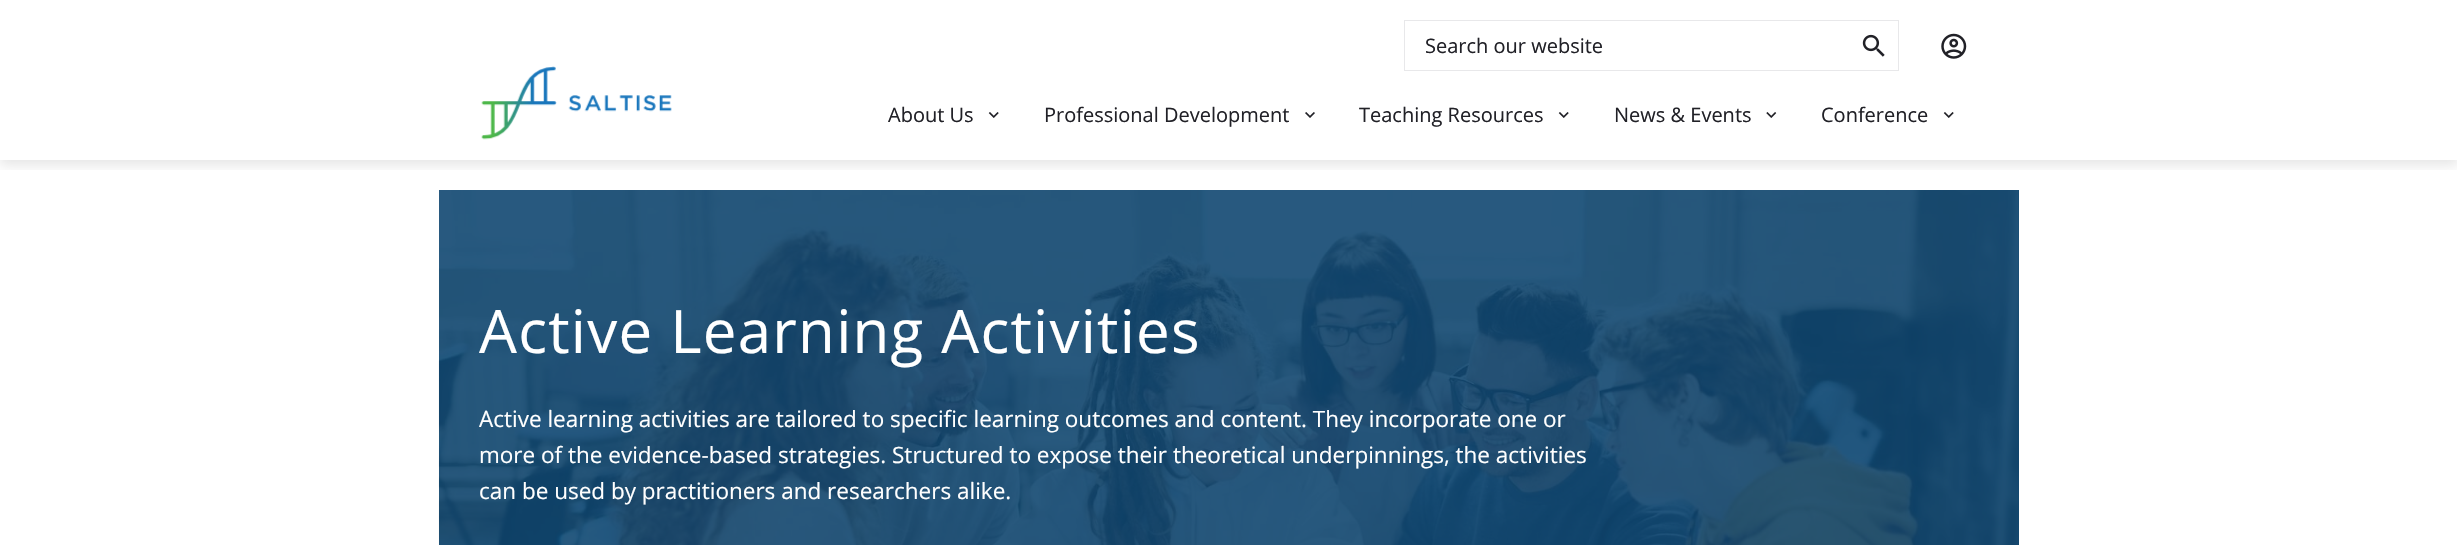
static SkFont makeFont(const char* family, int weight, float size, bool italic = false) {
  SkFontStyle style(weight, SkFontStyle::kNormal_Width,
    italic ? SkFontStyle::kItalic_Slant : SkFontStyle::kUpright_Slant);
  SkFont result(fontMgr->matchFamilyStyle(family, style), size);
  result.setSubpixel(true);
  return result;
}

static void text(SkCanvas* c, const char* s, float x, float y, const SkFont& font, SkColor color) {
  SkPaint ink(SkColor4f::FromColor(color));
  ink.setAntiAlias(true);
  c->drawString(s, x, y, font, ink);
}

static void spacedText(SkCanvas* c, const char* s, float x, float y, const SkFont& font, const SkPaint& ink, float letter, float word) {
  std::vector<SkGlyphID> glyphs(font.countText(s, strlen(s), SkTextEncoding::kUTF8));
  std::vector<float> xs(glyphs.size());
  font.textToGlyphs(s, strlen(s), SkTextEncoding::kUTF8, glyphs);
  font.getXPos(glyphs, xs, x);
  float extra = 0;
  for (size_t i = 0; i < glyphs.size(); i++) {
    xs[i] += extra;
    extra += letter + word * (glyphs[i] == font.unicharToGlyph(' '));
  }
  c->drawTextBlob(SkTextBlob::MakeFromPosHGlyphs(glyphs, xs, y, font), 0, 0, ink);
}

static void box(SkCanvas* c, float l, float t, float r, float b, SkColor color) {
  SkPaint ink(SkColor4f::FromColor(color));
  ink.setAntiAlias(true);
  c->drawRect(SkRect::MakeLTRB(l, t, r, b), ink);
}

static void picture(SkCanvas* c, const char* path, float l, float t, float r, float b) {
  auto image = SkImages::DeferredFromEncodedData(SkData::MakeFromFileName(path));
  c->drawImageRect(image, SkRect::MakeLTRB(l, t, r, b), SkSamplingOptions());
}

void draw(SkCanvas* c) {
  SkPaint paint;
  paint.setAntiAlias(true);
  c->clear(0xffffffff);
  c->save();
  c->clipRect(SkRect::MakeLTRB(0, 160, 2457, 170));
  paint.setColor(0x1a000000);
  paint.setMaskFilter(SkMaskFilter::MakeBlur(kNormal_SkBlurStyle, 6));
  c->drawRect(SkRect::MakeLTRB(0, 5, 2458, 165), paint);
  paint.setMaskFilter(nullptr);
  c->restore();
  paint.setStyle(SkPaint::kStroke_Style);
  paint.setStrokeWidth(1);
  paint.setColor(0xffe8e8ea);
  c->drawRect(SkRect::MakeLTRB(1404.5f, 20.5f, 1898.5f, 70.5f), paint);
  SkFont face1 = makeFont("Open Sans", 400, 20);
  text(c, "Search our website", 1425, 53, face1, 0xff212127);
  picture(c, "img_01.png", 1862, 34, 1885, 57);
  picture(c, "img_02.png", 1941, 33, 1967, 59);
  picture(c, "img_03.png", 481, 66, 672, 140);
  text(c, "About Us", 888, 122, face1, 0xff212127);
  picture(c, "img_04.png", 988, 112, 999, 118);
  text(c, "Professional Development", 1044, 122, face1, 0xff212127);
  picture(c, "img_05.png", 1305, 112, 1315, 118);
  text(c, "Teaching Resources", 1359, 122, face1, 0xff212127);
  picture(c, "img_04.png", 1558, 112, 1569, 118);
  text(c, "News & Events", 1614, 122, face1, 0xff212127);
  picture(c, "img_06.png", 1766, 112, 1777, 118);
  text(c, "Conference", 1821, 122, face1, 0xff212127);
  picture(c, "img_04.png", 1943, 112, 1954, 118);
  box(c, 439, 190, 2019, 545, 0xff0f4670);
  picture(c, "img_07.png", 438, 190, 2019, 545);
  SkFont face2 = makeFont("Open Sans", 400, 60);
  paint.setStyle(SkPaint::kFill_Style);
  paint.setColor(0xffffffff);
  spacedText(c, "Active Learning Activities", 479, 353, face2, paint, 1.25f, 0);
  SkFont face3 = makeFont("Open Sans", 400, 22.5f);
  text(c, "Active learning activities are tailored to specific learning outcomes and content. They incorporate one or", 479, 427, face3, 0xffffffff);
  text(c, "more of the evidence-based strategies. Structured to expose their theoretical underpinnings, the activities", 479, 463, face3, 0xffffffff);
  text(c, "can be used by practitioners and researchers alike.", 479, 499, face3, 0xffffffff);
}
